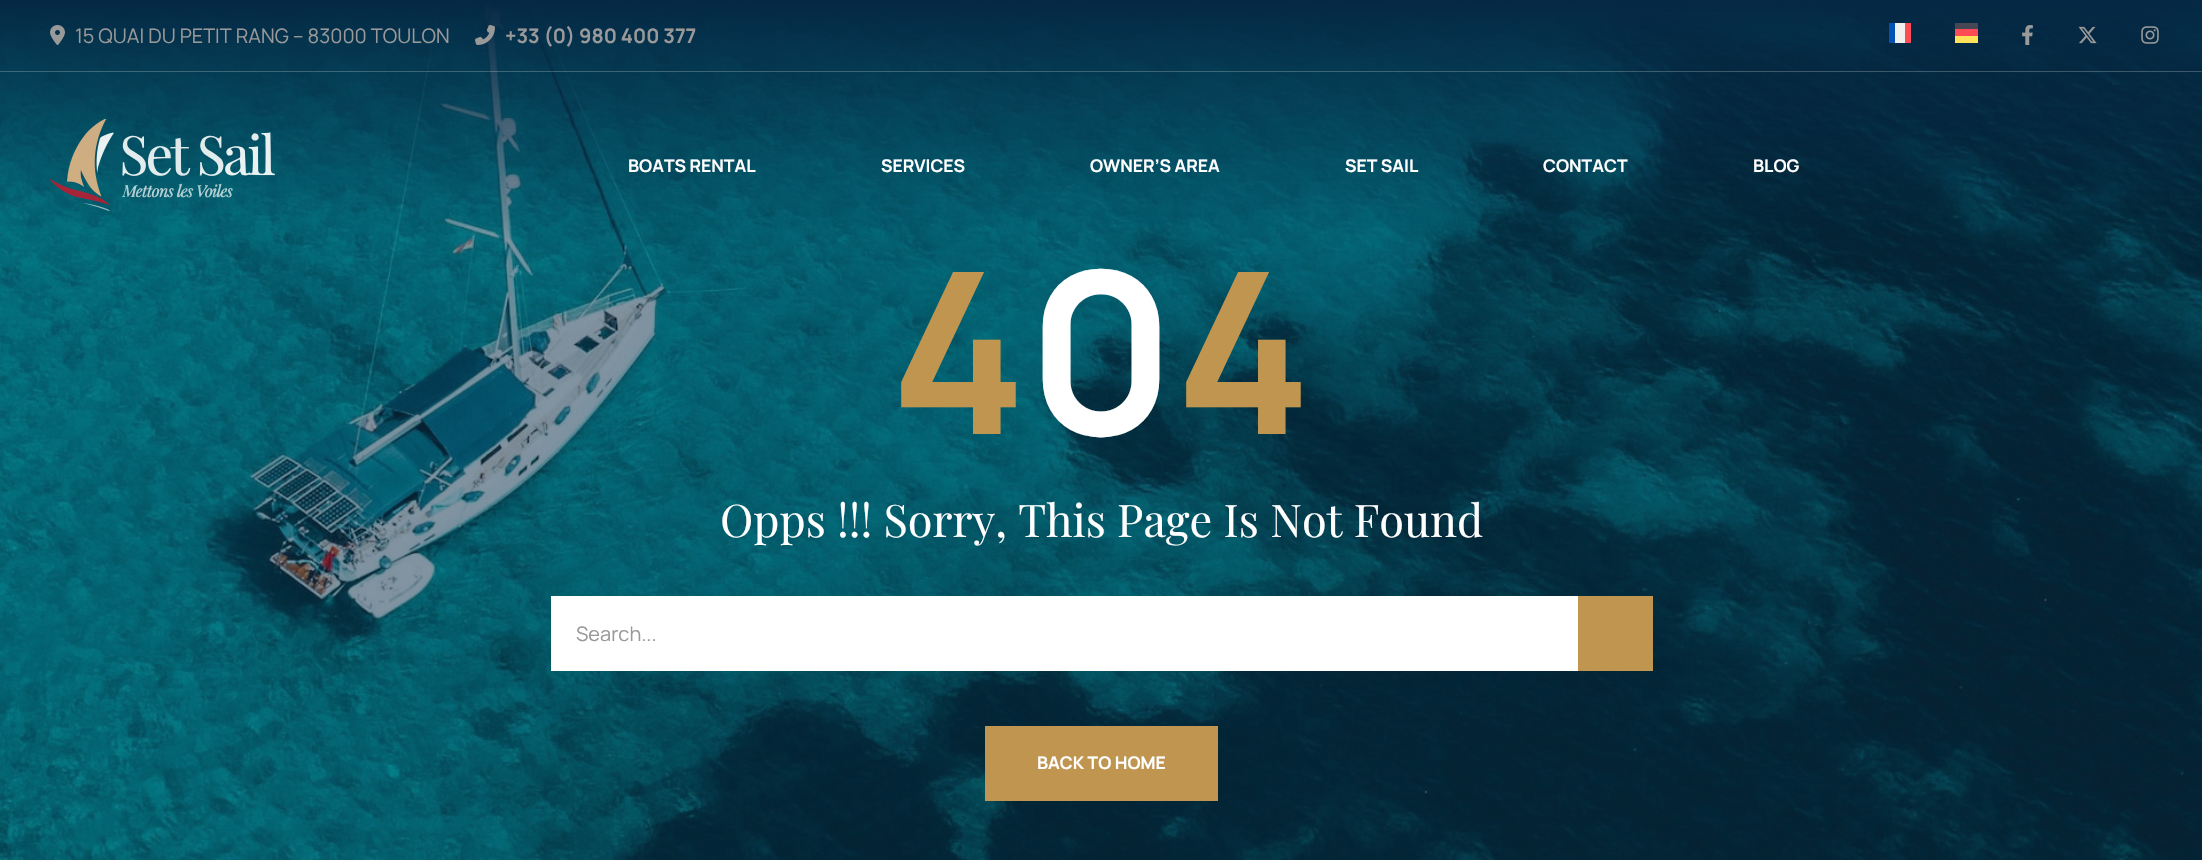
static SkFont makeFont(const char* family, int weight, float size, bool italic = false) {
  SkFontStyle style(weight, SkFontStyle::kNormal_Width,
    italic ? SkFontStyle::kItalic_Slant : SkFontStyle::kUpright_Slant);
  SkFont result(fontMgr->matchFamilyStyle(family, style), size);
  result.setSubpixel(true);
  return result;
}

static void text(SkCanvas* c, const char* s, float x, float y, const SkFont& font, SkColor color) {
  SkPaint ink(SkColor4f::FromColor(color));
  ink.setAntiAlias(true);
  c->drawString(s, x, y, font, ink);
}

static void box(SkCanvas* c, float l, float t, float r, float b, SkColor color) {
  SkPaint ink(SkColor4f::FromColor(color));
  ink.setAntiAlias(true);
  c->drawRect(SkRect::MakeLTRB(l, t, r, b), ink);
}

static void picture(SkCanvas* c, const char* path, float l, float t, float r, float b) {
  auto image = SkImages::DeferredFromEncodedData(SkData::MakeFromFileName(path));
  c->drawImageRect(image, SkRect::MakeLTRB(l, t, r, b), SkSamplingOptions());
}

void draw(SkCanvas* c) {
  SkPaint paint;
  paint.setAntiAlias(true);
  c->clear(0xffffffff);
  picture(c, "img_07.png", 0, 0, 2202, 860);
  box(c, 0, 71, 2202, 72, 0x38ffffff);
  picture(c, "img_01.png", 50, 25, 65, 45);
  SkFont face1 = makeFont("Manrope", 400, 20);
  text(c, "15 QUAI DU PETIT RANG – 83000 TOULON", 75, 43, face1, 0xff999999);
  picture(c, "img_02.png", 475, 25, 495, 45);
  SkFont face2 = makeFont("Manrope", 700, 20);
  text(c, "+33 (0) 980 400 377", 505, 43, face2, 0xff999999);
  box(c, 1895, 23, 1905, 43, 0xfff0f0f0);
  box(c, 1905, 23, 1911, 43, 0xffff4b55);
  box(c, 1889, 23, 1895, 43, 0xff0052b4);
  box(c, 1955, 29, 1978, 36, 0xffff4b55);
  box(c, 1955, 36, 1978, 43, 0xffffe15a);
  box(c, 1955, 23, 1978, 29, 0xff464655);
  picture(c, "img_03.png", 2022, 25, 2033, 45);
  picture(c, "img_04.png", 2078, 26, 2097, 44);
  picture(c, "img_05.png", 2141, 26, 2159, 44);
  picture(c, "img_06.png", 50, 119, 275, 211);
  SkFont face3 = makeFont("Manrope", 700, 17.5f);
  text(c, "BOATS RENTAL", 628, 172, face3, 0xffffffff);
  text(c, "SERVICES", 881, 172, face3, 0xffffffff);
  text(c, "OWNER’S AREA", 1090, 172, face3, 0xffffffff);
  text(c, "SET SAIL", 1345, 172, face3, 0xffffffff);
  text(c, "CONTACT", 1543, 172, face3, 0xffffffff);
  text(c, "BLOG", 1753, 172, face3, 0xffffffff);
  SkFont face4 = makeFont("Manrope", 700, 225);
  text(c, "4", 890, 434, face4, 0xffbf9550);
  text(c, "0", 1027, 434, face4, 0xffffffff);
  text(c, "4", 1175, 434, face4, 0xffbf9550);
  SkFont face5 = makeFont("Playfair Display", 400, 45);
  text(c, "Opps !!! Sorry, This Page Is Not Found", 720, 537, face5, 0xffffffff);
  box(c, 551, 596, 1578, 671, 0xffffffff);
  text(c, "Search...", 576, 641, face1, 0xff999999);
  box(c, 1578, 596, 1653, 671, 0xffbf9550);
  box(c, 985, 726, 1218, 801, 0xffbf9550);
  text(c, "BACK TO HOME", 1037, 769, face3, 0xffffffff);
}
